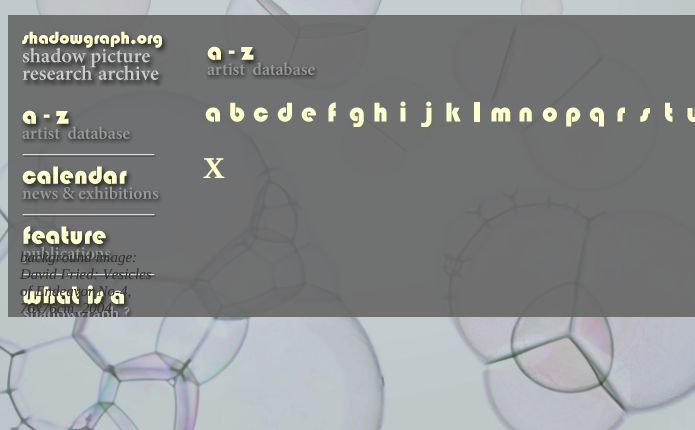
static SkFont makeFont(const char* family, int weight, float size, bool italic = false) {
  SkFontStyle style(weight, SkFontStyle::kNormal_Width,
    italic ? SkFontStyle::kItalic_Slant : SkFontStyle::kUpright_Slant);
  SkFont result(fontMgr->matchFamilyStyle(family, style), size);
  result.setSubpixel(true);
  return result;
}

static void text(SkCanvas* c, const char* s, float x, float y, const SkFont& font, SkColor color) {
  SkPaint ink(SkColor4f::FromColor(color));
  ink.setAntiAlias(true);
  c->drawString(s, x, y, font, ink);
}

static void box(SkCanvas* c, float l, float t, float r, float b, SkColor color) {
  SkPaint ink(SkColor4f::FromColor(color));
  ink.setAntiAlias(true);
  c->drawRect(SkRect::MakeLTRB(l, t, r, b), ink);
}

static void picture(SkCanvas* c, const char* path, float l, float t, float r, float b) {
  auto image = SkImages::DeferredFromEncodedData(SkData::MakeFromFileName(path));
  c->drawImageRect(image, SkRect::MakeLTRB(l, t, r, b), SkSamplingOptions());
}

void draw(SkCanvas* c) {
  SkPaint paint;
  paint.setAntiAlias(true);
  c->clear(0xffffffff);
  picture(c, "img_01.png", 0, 0, 695, 430);
  box(c, 193, 15, 695, 317, 0xe6666666);
  picture(c, "img_02.png", 206, 46, 318, 80);
  picture(c, "img_03.png", 205, 107, 220, 122);
  picture(c, "img_04.png", 230, 102, 245, 122);
  picture(c, "img_05.png", 253, 107, 268, 122);
  picture(c, "img_06.png", 277, 102, 292, 122);
  picture(c, "img_07.png", 301, 107, 316, 122);
  picture(c, "img_08.png", 328, 102, 336, 122);
  picture(c, "img_09.png", 349, 107, 364, 127);
  picture(c, "img_10.png", 374, 102, 387, 122);
  picture(c, "img_11.png", 400, 101, 406, 122);
  picture(c, "img_12.png", 421, 101, 432, 127);
  picture(c, "img_13.png", 446, 102, 461, 122);
  box(c, 474, 102, 480, 122, 0xffffffcc);
  picture(c, "img_14.png", 491, 107, 511, 122);
  picture(c, "img_15.png", 519, 107, 532, 122);
  picture(c, "img_16.png", 542, 107, 557, 122);
  picture(c, "img_17.png", 566, 107, 581, 127);
  picture(c, "img_18.png", 589, 107, 604, 127);
  picture(c, "img_19.png", 617, 107, 625, 122);
  picture(c, "img_20.png", 640, 108, 650, 122);
  picture(c, "img_21.png", 665, 102, 673, 122);
  picture(c, "img_22.png", 687, 108, 695, 122);
  SkFont face1 = makeFont("Liberation Serif", 700, 30);
  text(c, "X", 203, 178, face1, 0xffffffcc);
  box(c, 8, 15, 193, 317, 0xe6666666);
  picture(c, "img_23.png", 21, 31, 168, 87);
  picture(c, "img_24.png", 21, 110, 133, 144);
  picture(c, "img_25.png", 22, 154, 156, 157);
  picture(c, "img_26.png", 21, 166, 162, 204);
  picture(c, "img_27.png", 22, 214, 156, 217);
  picture(c, "img_28.png", 21, 226, 114, 265);
  SkFont face2 = makeFont("Liberation Serif", 400, 15, true);
  text(c, "background image:", 20, 262, face2, 0xff333333);
  picture(c, "img_29.png", 22, 274, 156, 277);
  text(c, "David Fried: Vesicles", 20, 279, face2, 0xff333333);
  picture(c, "img_30.png", 21, 285, 133, 317);
  text(c, "of Endeavor No-4,", 20, 296, face2, 0xff333333);
  text(c, "76x76cm, 2004", 20, 313, face2, 0xff333333);
}
